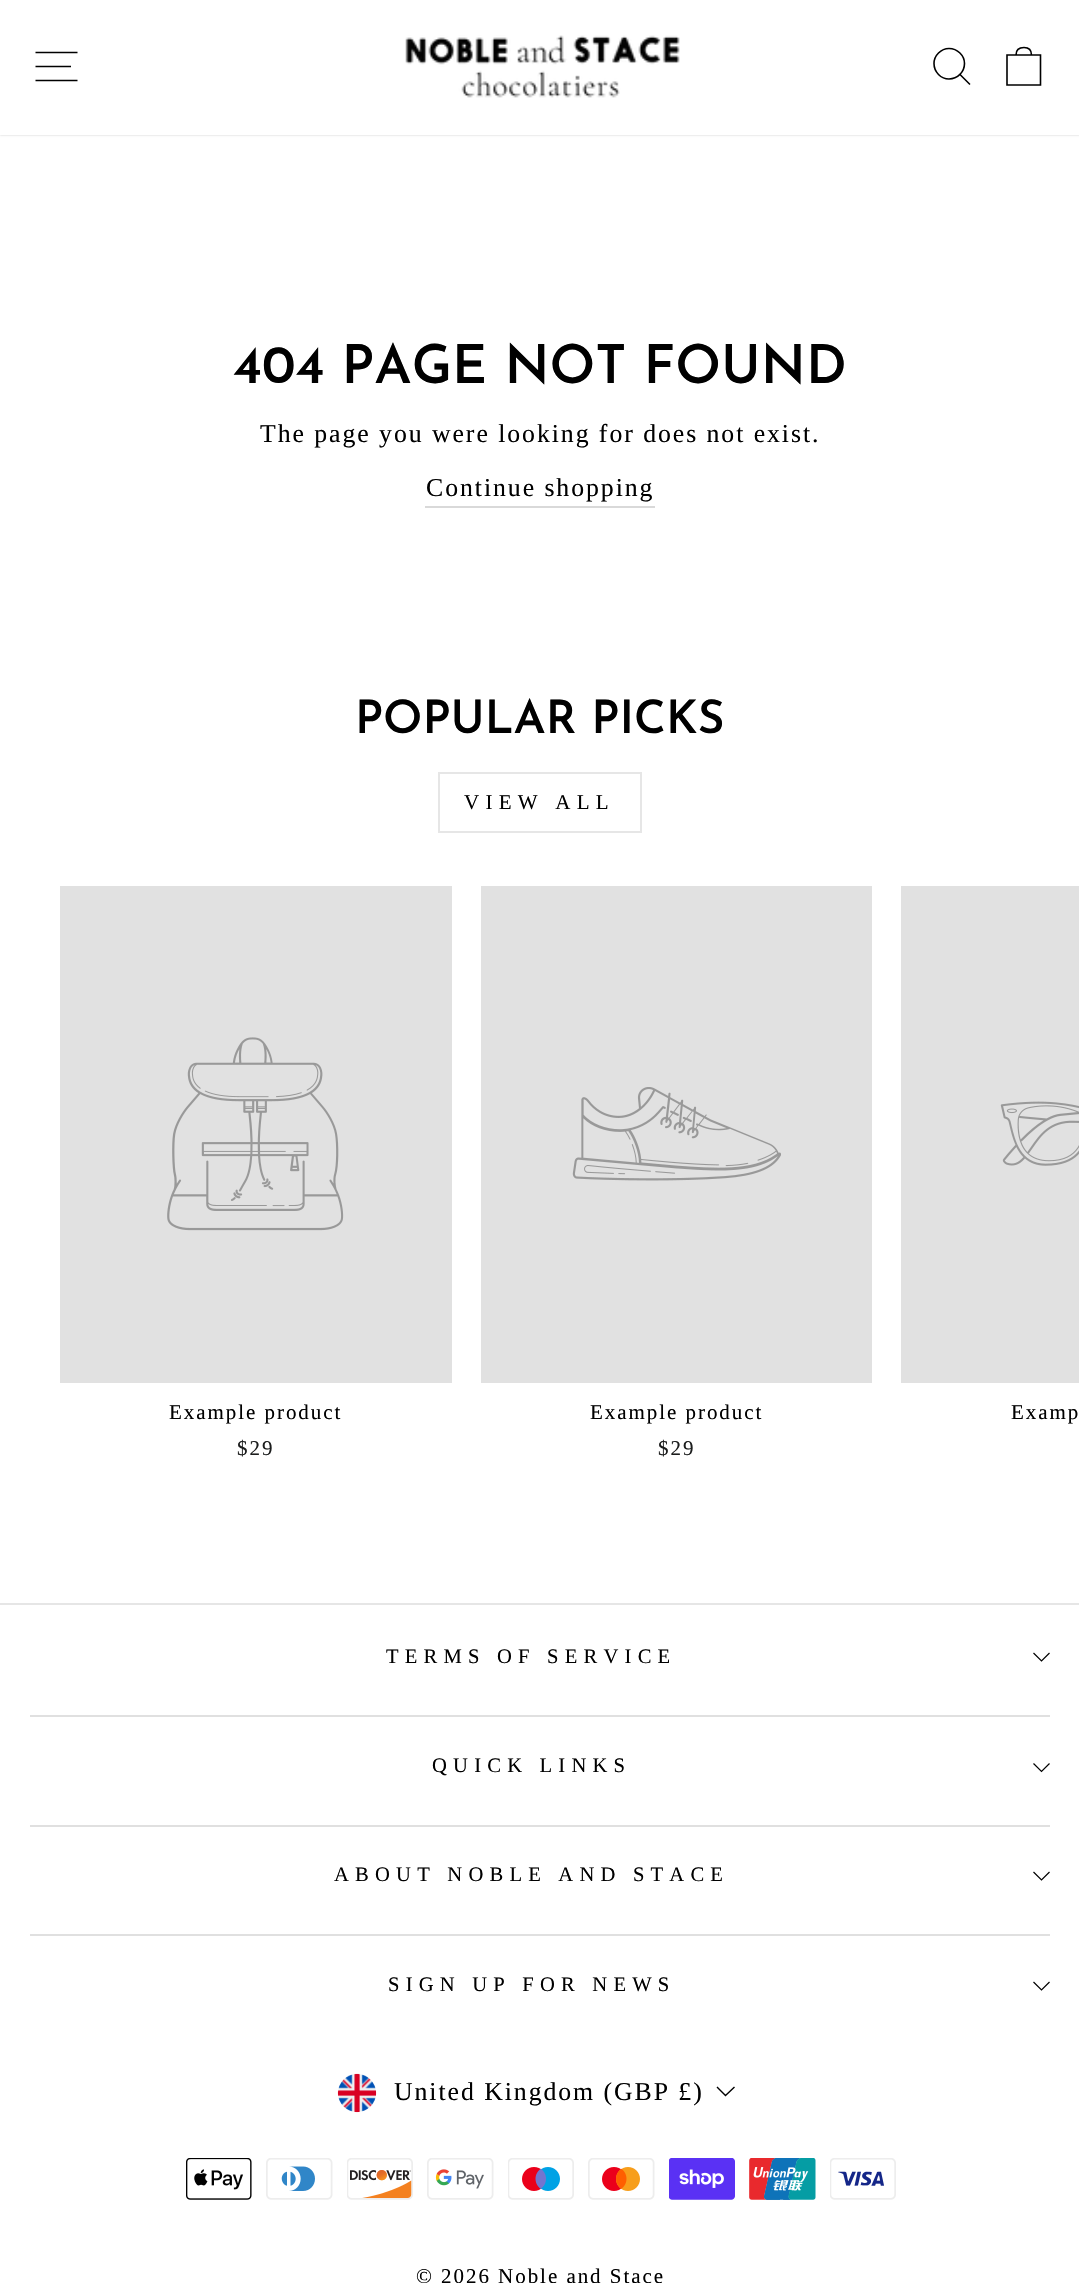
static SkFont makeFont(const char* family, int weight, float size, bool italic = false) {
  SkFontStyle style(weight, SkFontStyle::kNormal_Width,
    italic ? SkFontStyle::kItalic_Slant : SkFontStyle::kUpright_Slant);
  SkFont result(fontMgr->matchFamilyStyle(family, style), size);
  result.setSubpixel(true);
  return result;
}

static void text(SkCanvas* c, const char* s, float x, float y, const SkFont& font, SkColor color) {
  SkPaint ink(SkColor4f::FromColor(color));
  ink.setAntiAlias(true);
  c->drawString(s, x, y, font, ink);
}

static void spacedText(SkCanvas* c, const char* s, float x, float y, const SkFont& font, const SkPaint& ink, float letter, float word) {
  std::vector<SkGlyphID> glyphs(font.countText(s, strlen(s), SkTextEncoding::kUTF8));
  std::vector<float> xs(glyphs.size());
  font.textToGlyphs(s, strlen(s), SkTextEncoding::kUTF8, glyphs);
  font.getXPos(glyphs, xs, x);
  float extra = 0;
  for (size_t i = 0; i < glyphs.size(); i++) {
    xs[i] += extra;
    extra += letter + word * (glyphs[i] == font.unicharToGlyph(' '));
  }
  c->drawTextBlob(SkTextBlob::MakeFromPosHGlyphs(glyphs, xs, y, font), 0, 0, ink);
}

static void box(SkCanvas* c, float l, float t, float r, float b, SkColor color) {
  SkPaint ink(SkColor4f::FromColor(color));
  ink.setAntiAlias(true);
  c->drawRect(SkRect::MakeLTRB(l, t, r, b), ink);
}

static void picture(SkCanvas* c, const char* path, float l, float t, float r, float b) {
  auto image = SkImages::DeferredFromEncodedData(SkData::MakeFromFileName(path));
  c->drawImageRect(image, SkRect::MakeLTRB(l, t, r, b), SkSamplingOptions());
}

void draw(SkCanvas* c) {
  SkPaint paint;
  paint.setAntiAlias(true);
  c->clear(0xffffffff);
  paint.setColor(0x33000000);
  paint.setMaskFilter(SkMaskFilter::MakeBlur(kNormal_SkBlurStyle, 1));
  c->drawRect(SkRect::MakeLTRB(0, 0, 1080, 135), paint);
  paint.setMaskFilter(nullptr);
  box(c, 0, 0, 1079, 135, 0xffffffff);
  paint.setStyle(SkPaint::kStroke_Style);
  paint.setStrokeWidth(1.6f);
  paint.setColor(0xff000000);
  c->drawPath(SkPathBuilder().moveTo(35.5f, 52.5f).lineTo(77.5f, 52.5f).moveTo(35.5f, 66.5f).lineTo(71, 66.5f).moveTo(35.5f, 80.5f).lineTo(77.5f, 80.5f).detach(), paint);
  picture(c, "img_01.png", 405, 35, 680, 98);
  c->drawPath(SkPathBuilder().moveTo(964.5f, 63.5f).cubicTo(964.5f, 72, 957.5f, 79, 949, 79).cubicTo(941, 79, 934, 72, 934, 63.5f).cubicTo(934, 55.5f, 941, 48.5f, 949, 48.5f).cubicTo(957.5f, 48.5f, 964.5f, 55.5f, 964.5f, 63.5f).close().moveTo(970, 84.5f).lineTo(960, 74.5f).detach(), paint);
  c->drawPath(SkPathBuilder().moveTo(1007, 55).lineTo(1040.5f, 55).lineTo(1040.5f, 85).lineTo(1007, 85).close().moveTo(1016, 55).cubicTo(1016, 49, 1019.5f, 47.5f, 1024, 47.5f).cubicTo(1028, 47.5f, 1031.5f, 49, 1031.5f, 55).detach(), paint);
  SkFont face1 = makeFont("Josefin Sans", 600, 53.5f);
  text(c, "404 PAGE NOT FOUND", 233, 383, face1, 0xff000000);
  SkFont face2 = makeFont("Liberation Serif", 400, 25.75f);
  paint.setStyle(SkPaint::kFill_Style);
  spacedText(c, "The page you were looking for does not exist.", 260, 442, face2, paint, 1.95f, 0);
  box(c, 425, 506, 655, 508, 0xffd9d9d9);
  spacedText(c, "Continue shopping", 426, 496, face2, paint, 1.95f, 0);
  SkFont face3 = makeFont("Josefin Sans", 600, 46);
  text(c, "POPULAR PICKS", 355, 733, face3, 0xff000000);
  paint.setStyle(SkPaint::kStroke_Style);
  paint.setStrokeWidth(2);
  paint.setColor(0xffe6e6e6);
  c->drawRect(SkRect::MakeLTRB(439, 773, 641, 832), paint);
  SkFont face4 = makeFont("Liberation Serif", 400, 21);
  paint.setStyle(SkPaint::kFill_Style);
  paint.setColor(0xff000000);
  spacedText(c, "VIEW ALL", 464, 809, face4, paint, 6.25f, 0);
  box(c, 60, 886, 452, 1383, 0xffe1e1e1);
  picture(c, "img_02.png", 167, 1037, 344, 1231);
  spacedText(c, "Example product", 169, 1419, face4, paint, 1.95f, 0);
  paint.setColor(0xff1c1d1d);
  spacedText(c, "$29", 237, 1455, face4, paint, 1.95f, 0);
  box(c, 481, 886, 872, 1383, 0xffe1e1e1);
  picture(c, "img_03.png", 572, 1087, 781, 1181);
  paint.setColor(0xff000000);
  spacedText(c, "Example product", 590, 1419, face4, paint, 1.95f, 0);
  paint.setColor(0xff1c1d1d);
  spacedText(c, "$29", 658, 1455, face4, paint, 1.95f, 0);
  box(c, 901, 886, 1079, 1383, 0xffe1e1e1);
  picture(c, "img_04.png", 1000, 1101, 1079, 1166);
  paint.setColor(0xff000000);
  spacedText(c, "Examp", 1011, 1419, face4, paint, 1.95f, 0);
  box(c, 0, 1603, 1079, 1605, 0xffe6e6e6);
  SkFont face5 = makeFont("Liberation Serif", 400, 20.6f);
  spacedText(c, "TERMS OF SERVICE", 386, 1663, face5, paint, 6.2f, 0);
  paint.setStyle(SkPaint::kStroke_Style);
  paint.setStrokeWidth(1.2f);
  c->drawPath(SkPathBuilder().moveTo(1033.5f, 1653).lineTo(1041.5f, 1661).lineTo(1049.5f, 1653).detach(), paint);
  box(c, 30, 1715, 1050, 1717, 0xffe0e0e0);
  paint.setStyle(SkPaint::kFill_Style);
  spacedText(c, "QUICK LINKS", 432, 1772, face5, paint, 6.2f, 0);
  paint.setStyle(SkPaint::kStroke_Style);
  c->drawPath(SkPathBuilder().moveTo(1033.5f, 1763.5f).lineTo(1041.5f, 1771.5f).lineTo(1049.5f, 1763.5f).detach(), paint);
  box(c, 30, 1825, 1050, 1827, 0xffe0e0e0);
  paint.setStyle(SkPaint::kFill_Style);
  spacedText(c, "ABOUT NOBLE AND STACE", 334, 1881, face5, paint, 6.2f, 0);
  paint.setStyle(SkPaint::kStroke_Style);
  c->drawPath(SkPathBuilder().moveTo(1033.5f, 1872).lineTo(1041.5f, 1880).lineTo(1049.5f, 1872).detach(), paint);
  box(c, 30, 1934, 1050, 1936, 0xffe0e0e0);
  paint.setStyle(SkPaint::kFill_Style);
  spacedText(c, "SIGN UP FOR NEWS", 388, 1991, face5, paint, 6.2f, 0);
  paint.setStyle(SkPaint::kStroke_Style);
  c->drawPath(SkPathBuilder().moveTo(1033.5f, 1982).lineTo(1041.5f, 1990).lineTo(1049.5f, 1982).detach(), paint);
  picture(c, "img_05.png", 337, 2073, 377, 2113);
  paint.setStyle(SkPaint::kFill_Style);
  spacedText(c, "United Kingdom (GBP £)", 394, 2100, face2, paint, 1.95f, 0);
  paint.setStyle(SkPaint::kStroke_Style);
  paint.setStrokeWidth(1.4f);
  c->drawPath(SkPathBuilder().moveTo(717, 2087).lineTo(725.5f, 2095.5f).lineTo(734.5f, 2087).detach(), paint);
  picture(c, "img_06.png", 186, 2158, 252, 2200);
  picture(c, "img_07.png", 266, 2158, 333, 2200);
  picture(c, "img_08.png", 347, 2158, 413, 2200);
  picture(c, "img_09.png", 427, 2158, 494, 2200);
  picture(c, "img_10.png", 508, 2158, 574, 2200);
  picture(c, "img_11.png", 588, 2158, 655, 2200);
  picture(c, "img_12.png", 669, 2158, 735, 2200);
  picture(c, "img_13.png", 749, 2158, 816, 2200);
  picture(c, "img_14.png", 830, 2158, 896, 2200);
  paint.setStyle(SkPaint::kFill_Style);
  spacedText(c, "© 2026 Noble and Stace", 416, 2283, face4, paint, 1.95f, 0);
}
